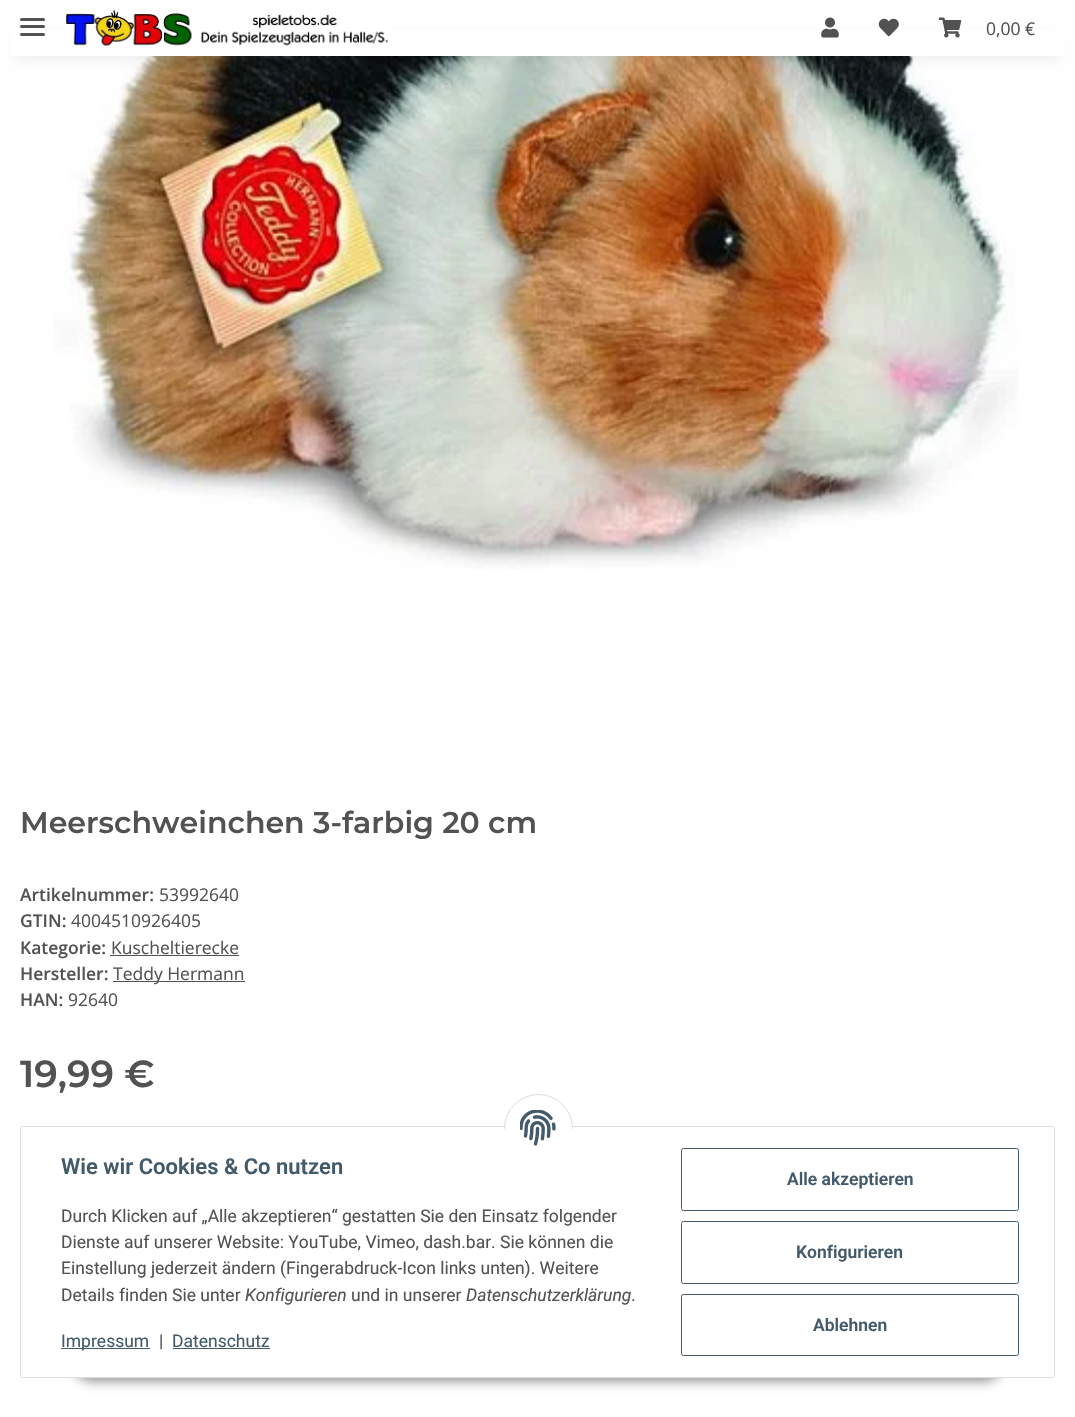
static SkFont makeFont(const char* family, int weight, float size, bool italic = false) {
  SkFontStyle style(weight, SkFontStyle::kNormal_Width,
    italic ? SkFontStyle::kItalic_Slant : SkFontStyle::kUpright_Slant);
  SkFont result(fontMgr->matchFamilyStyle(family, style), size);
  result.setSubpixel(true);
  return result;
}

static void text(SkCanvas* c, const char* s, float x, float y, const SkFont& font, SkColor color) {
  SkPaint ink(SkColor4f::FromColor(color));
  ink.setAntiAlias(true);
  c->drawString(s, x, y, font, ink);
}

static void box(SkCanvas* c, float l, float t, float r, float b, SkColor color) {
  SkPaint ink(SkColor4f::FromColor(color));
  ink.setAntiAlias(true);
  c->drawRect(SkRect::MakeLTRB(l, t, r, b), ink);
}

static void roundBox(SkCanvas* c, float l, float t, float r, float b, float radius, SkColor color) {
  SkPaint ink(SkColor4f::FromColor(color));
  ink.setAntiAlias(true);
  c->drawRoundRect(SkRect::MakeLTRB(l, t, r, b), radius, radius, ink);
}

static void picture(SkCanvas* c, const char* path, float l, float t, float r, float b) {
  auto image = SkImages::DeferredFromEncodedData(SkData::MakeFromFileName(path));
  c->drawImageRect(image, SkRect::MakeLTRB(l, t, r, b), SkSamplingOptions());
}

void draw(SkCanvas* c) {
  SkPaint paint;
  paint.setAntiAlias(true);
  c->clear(0xffffffff);
  picture(c, "img_05.png", 54, 56, 1019, 569);
  paint.setColor(0x0f000000);
  paint.setMaskFilter(SkMaskFilter::MakeBlur(kNormal_SkBlurStyle, 5.5f));
  c->drawRect(SkRect::MakeLTRB(15, 35, 1060, 61), paint);
  paint.setMaskFilter(nullptr);
  box(c, 10, 30, 1065, 56, 0xffffffff);
  roundBox(c, 20, 25, 45, 28, 1.5f, 0xff525252);
  roundBox(c, 20, 18, 45, 21, 1.5f, 0xff525252);
  roundBox(c, 20, 33, 45, 36, 1.5f, 0xff525252);
  picture(c, "img_01.png", 66, 10, 388, 46);
  picture(c, "img_02.png", 821, 17, 839, 38);
  picture(c, "img_03.png", 878, 18, 899, 37);
  picture(c, "img_04.png", 938, 17, 962, 38);
  SkFont face1 = makeFont("Open Sans", 400, 17.5f);
  text(c, "0,00 €", 986, 35, face1, 0xff525252);
  SkFont face2 = makeFont("Montserrat", 600, 30);
  text(c, "Meerschweinchen 3-farbig 20 cm", 20, 833, face2, 0xff525252);
  SkFont face3 = makeFont("Open Sans", 600, 17.5f);
  text(c, "Artikelnummer:", 20, 901, face3, 0xff525252);
  text(c, "53992640", 159, 901, face1, 0xff525252);
  text(c, "GTIN:", 20, 927, face3, 0xff525252);
  text(c, "4004510926405", 71, 927, face1, 0xff525252);
  text(c, "Kategorie:", 20, 954, face3, 0xff525252);
  text(c, "Kuscheltierecke", 111, 954, face1, 0xff525252);
  box(c, 110, 955, 239, 956, 0xff525252);
  text(c, "Hersteller:", 20, 980, face3, 0xff525252);
  box(c, 113, 981, 245, 982, 0xff525252);
  text(c, "Teddy Hermann", 113, 980, face1, 0xff525252);
  text(c, "HAN:", 20, 1006, face3, 0xff525252);
  text(c, "92640", 68, 1006, face1, 0xff525252);
  SkFont face4 = makeFont("Montserrat", 600, 37.5f);
  text(c, "19,99 €", 20, 1087, face4, 0xff525252);
  paint.setColor(0x73000000);
  paint.setMaskFilter(SkMaskFilter::MakeBlur(kNormal_SkBlurStyle, 6));
  c->drawRoundRect(SkRect::MakeLTRB(73, 1341, 1003, 1381), 20, 20, paint);
  paint.setMaskFilter(nullptr);
  paint.setColor(0xffffffff);
  c->drawRoundRect(SkRect::MakeLTRB(20.5f, 1126.5f, 1054.5f, 1377.5f), 2, 2, paint);
  paint.setStyle(SkPaint::kStroke_Style);
  paint.setStrokeWidth(1);
  paint.setColor(0xffdddddd);
  c->drawRoundRect(SkRect::MakeLTRB(20.5f, 1126.5f, 1054.5f, 1377.5f), 2, 2, paint);
  paint.setStyle(SkPaint::kFill_Style);
  paint.setColor(0xffffffff);
  c->drawCircle(538.5f, 1128.5f, 34, paint);
  paint.setStyle(SkPaint::kStroke_Style);
  paint.setColor(0xffdddddd);
  c->drawCircle(538.5f, 1128.5f, 34, paint);
  box(c, 504, 1129, 573, 1163, 0xffffffff);
  picture(c, "img_06.png", 520, 1110, 556, 1146);
  SkFont face5 = makeFont("Roboto", 600, 22);
  text(c, "Wie wir Cookies & Co nutzen", 61, 1174, face5, 0xff435a6b);
  SkFont face6 = makeFont("Roboto", 400, 17.5f);
  text(c, "Durch Klicken auf „Alle akzeptieren“ gestatten Sie den Einsatz folgender", 61, 1222, face6, 0xff525252);
  text(c, "Dienste auf unserer Website: YouTube, Vimeo, dash.bar. Sie können die", 61, 1248, face6, 0xff525252);
  text(c, "Einstellung jederzeit ändern (Fingerabdruck-Icon links unten). Weitere", 61, 1274, face6, 0xff525252);
  text(c, "Details finden Sie unter", 61, 1301, face6, 0xff525252);
  SkFont face7 = makeFont("Roboto", 400, 17.5f, true);
  text(c, "Konfigurieren", 245, 1301, face7, 0xff525252);
  text(c, "und in unserer", 351, 1301, face6, 0xff525252);
  text(c, "Datenschutzerklärung", 466, 1301, face7, 0xff525252);
  text(c, ".", 631, 1301, face6, 0xff525252);
  box(c, 61, 1348, 150, 1349, 0xff435a6b);
  text(c, "Impressum", 61, 1347, face6, 0xff435a6b);
  text(c, "|", 159, 1347, face6, 0xff525252);
  text(c, "Datenschutz", 172, 1347, face6, 0xff435a6b);
  box(c, 173, 1348, 270, 1349, 0xff435a6b);
  paint.setColor(0xff435a6b);
  c->drawRoundRect(SkRect::MakeLTRB(681.5f, 1148.5f, 1018.5f, 1210.5f), 2, 2, paint);
  SkFont face8 = makeFont("Roboto", 600, 17.5f);
  text(c, "Alle akzeptieren", 787, 1185, face8, 0xff435a6b);
  c->drawRoundRect(SkRect::MakeLTRB(681.5f, 1221.5f, 1018.5f, 1283.5f), 2, 2, paint);
  text(c, "Konfigurieren", 796, 1258, face8, 0xff435a6b);
  c->drawRoundRect(SkRect::MakeLTRB(681.5f, 1294.5f, 1018.5f, 1355.5f), 2, 2, paint);
  text(c, "Ablehnen", 813, 1331, face8, 0xff435a6b);
}
